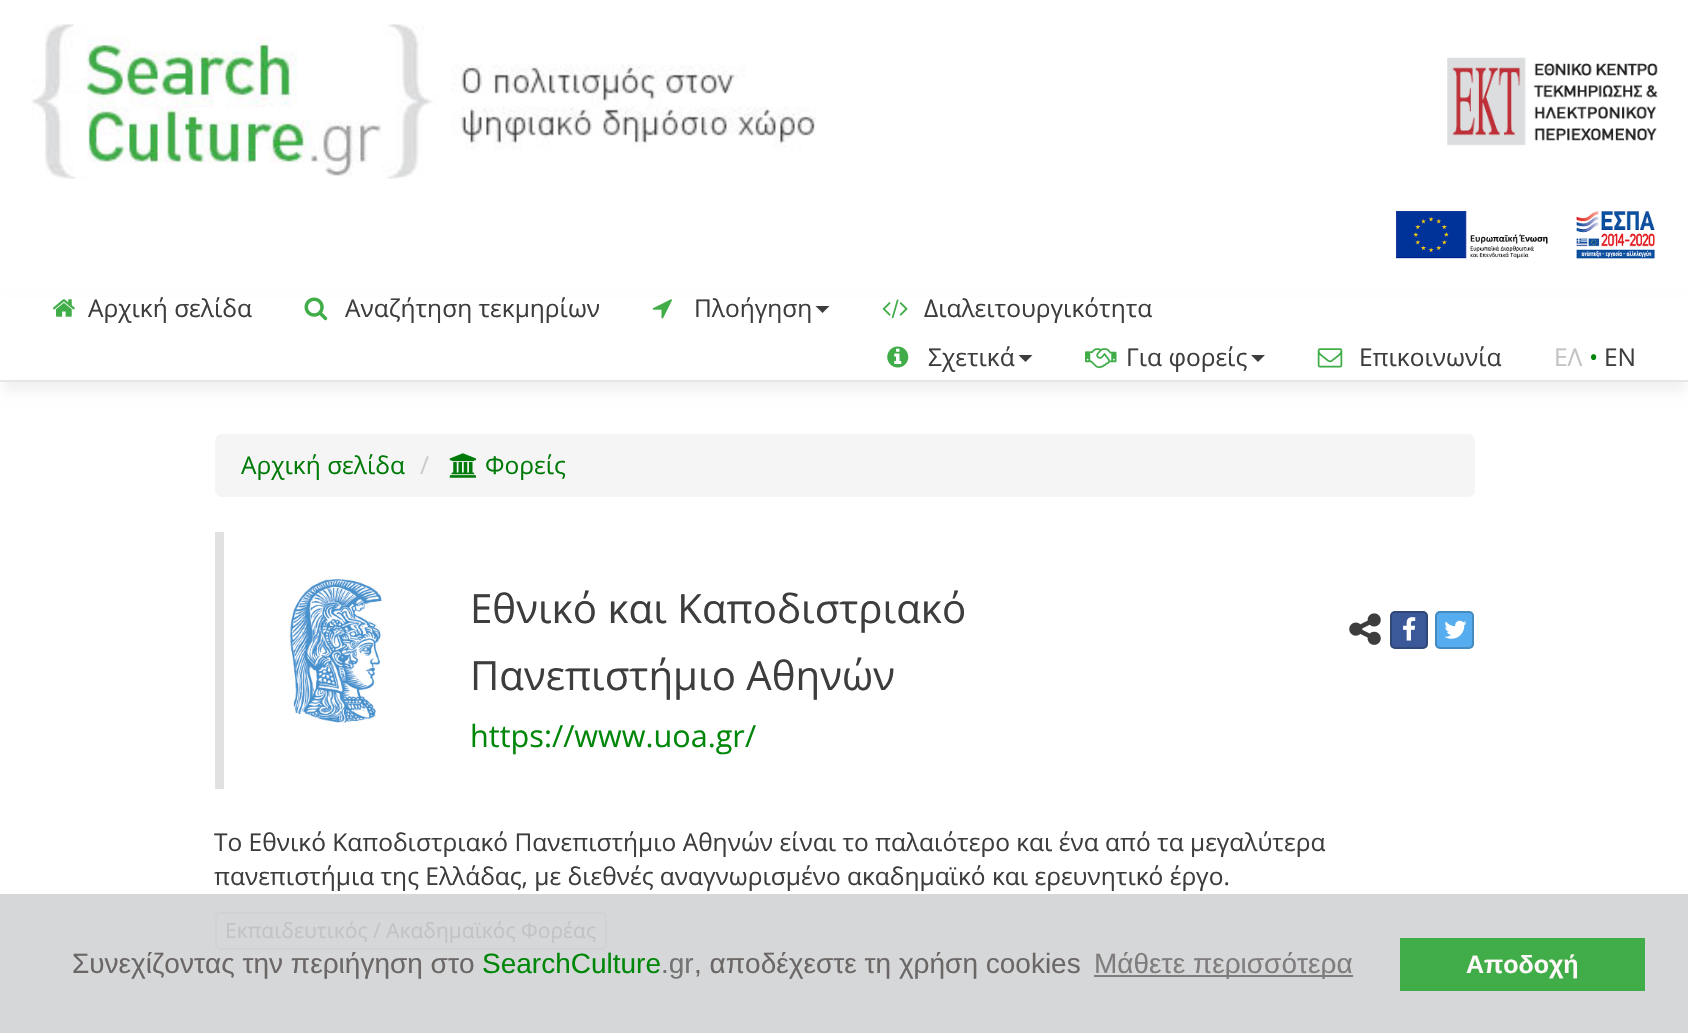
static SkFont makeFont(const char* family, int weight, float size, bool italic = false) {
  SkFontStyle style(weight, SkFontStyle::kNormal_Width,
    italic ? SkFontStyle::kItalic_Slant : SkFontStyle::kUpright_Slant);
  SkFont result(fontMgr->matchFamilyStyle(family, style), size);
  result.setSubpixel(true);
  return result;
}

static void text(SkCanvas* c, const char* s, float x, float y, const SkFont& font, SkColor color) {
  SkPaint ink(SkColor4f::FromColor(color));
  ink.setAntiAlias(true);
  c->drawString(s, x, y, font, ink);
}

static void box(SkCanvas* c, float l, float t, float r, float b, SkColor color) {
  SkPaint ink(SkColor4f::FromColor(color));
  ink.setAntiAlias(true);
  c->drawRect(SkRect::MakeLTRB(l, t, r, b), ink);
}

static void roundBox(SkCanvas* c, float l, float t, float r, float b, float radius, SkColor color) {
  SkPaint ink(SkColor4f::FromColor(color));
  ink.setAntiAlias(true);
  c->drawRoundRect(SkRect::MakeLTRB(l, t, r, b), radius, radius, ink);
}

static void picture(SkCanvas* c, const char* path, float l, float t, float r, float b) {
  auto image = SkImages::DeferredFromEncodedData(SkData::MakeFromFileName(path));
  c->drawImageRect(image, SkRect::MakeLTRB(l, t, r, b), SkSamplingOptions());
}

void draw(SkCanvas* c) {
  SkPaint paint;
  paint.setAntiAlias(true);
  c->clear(0xffffffff);
  box(c, 0, 894, 1688, 1033, 0xffd6d7d8);
  picture(c, "img_01.png", 31, 23, 816, 179);
  picture(c, "img_02.png", 1447, 57, 1658, 146);
  picture(c, "img_03.png", 1396, 211, 1655, 259);
  paint.setColor(0x0d000000);
  paint.setMaskFilter(SkMaskFilter::MakeBlur(kNormal_SkBlurStyle, 5));
  c->drawRect(SkRect::MakeLTRB(4, 301, 1685, 392), paint);
  paint.setMaskFilter(nullptr);
  box(c, 0, 297, 1688, 380, 0xffffffff);
  box(c, 0, 380, 1688, 382, 0xffe6e6e6);
  picture(c, "img_04.png", 52, 299, 75, 317);
  SkFont face1 = makeFont("Open Sans", 400, 24.5f);
  text(c, "Αρχική σελίδα", 88, 317, face1, 0xff3d3d3d);
  picture(c, "img_05.png", 304, 297, 328, 321);
  text(c, "Αναζήτηση τεκμηρίων", 345, 317, face1, 0xff3d3d3d);
  picture(c, "img_06.png", 652, 299, 672, 319);
  text(c, "Πλοήγηση", 694, 317, face1, 0xff3d3d3d);
  paint.setColor(0xff3d3d3d);
  c->drawPath(SkPathBuilder().moveTo(815.5f, 306).lineTo(829.5f, 306).lineTo(822.5f, 313).close().detach(), paint);
  picture(c, "img_07.png", 882, 299, 908, 319);
  text(c, "Διαλειτουργικότητα", 924, 317, face1, 0xff3d3d3d);
  picture(c, "img_08.png", 887, 346, 909, 368);
  text(c, "Σχετικά", 928, 366, face1, 0xff3d3d3d);
  c->drawPath(SkPathBuilder().moveTo(1018.5f, 355).lineTo(1032.5f, 355).lineTo(1025.5f, 362).close().detach(), paint);
  picture(c, "img_09.png", 1085, 348, 1117, 369);
  text(c, "Για φορείς", 1126, 366, face1, 0xff3d3d3d);
  c->drawPath(SkPathBuilder().moveTo(1251, 355).lineTo(1265, 355).lineTo(1258, 362).close().detach(), paint);
  picture(c, "img_10.png", 1317, 348, 1343, 368);
  text(c, "Επικοινωνία", 1359, 366, face1, 0xff3d3d3d);
  text(c, "ΕΛ", 1554, 366, face1, 0xffc1c3c4);
  text(c, "•", 1589, 366, face1, 0xff00870a);
  text(c, "EN", 1604, 366, face1, 0xff3d3d3d);
  roundBox(c, 215, 434, 1475, 497, 7, 0xfff5f5f5);
  text(c, "Αρχική σελίδα", 241, 474, face1, 0xff007a08);
  text(c, "/", 420, 474, face1, 0xffcccccc);
  picture(c, "img_11.png", 449, 453, 476, 478);
  text(c, "Φορείς", 485, 474, face1, 0xff007a08);
  box(c, 215, 532, 224, 789, 0xffe1e1e1);
  picture(c, "img_12.png", 289, 579, 382, 723);
  SkFont face2 = makeFont("Open Sans", 400, 40.25f);
  text(c, "Εθνικό και Καποδιστριακό", 470, 623, face2, 0xff3d3d3d);
  text(c, "Πανεπιστήμιο Αθηνών", 470, 690, face2, 0xff3d3d3d);
  SkFont face3 = makeFont("Open Sans", 400, 30.6f);
  text(c, "https://www.uoa.gr/", 470, 747, face3, 0xff00870a);
  picture(c, "img_13.png", 1349, 613, 1381, 645);
  roundBox(c, 1390, 611, 1428, 649, 5, 0xff3b5998);
  paint.setStyle(SkPaint::kStroke_Style);
  paint.setStrokeWidth(2);
  paint.setColor(0x33000000);
  c->drawRoundRect(SkRect::MakeLTRB(1391, 612, 1427, 648), 4, 4, paint);
  picture(c, "img_14.png", 1403, 617, 1416, 641);
  roundBox(c, 1435, 611, 1474, 649, 5, 0xff55acee);
  c->drawRoundRect(SkRect::MakeLTRB(1436, 612, 1473, 648), 4, 4, paint);
  picture(c, "img_15.png", 1444, 620, 1467, 639);
  text(c, "Το Εθνικό Καποδιστριακό Πανεπιστήμιο Αθηνών είναι το παλαιότερο και ένα από τα μεγαλύτερα", 214, 851, face1, 0xff3d3d3d);
  text(c, "πανεπιστήμια της Ελλάδας, με διεθνές αναγνωρισμένο ακαδημαϊκό και ερευνητικό έργο.", 214, 885, face1, 0xff3d3d3d);
  paint.setColor(0xffd1d2d3);
  c->drawRoundRect(SkRect::MakeLTRB(216, 913, 606, 949), 4, 4, paint);
  SkFont face4 = makeFont("Open Sans", 400, 21);
  text(c, "Εκπαιδευτικός / Ακαδημαϊκός Φορέας", 225, 938, face4, 0xffc1c3c4);
  SkFont face5 = makeFont("Liberation Sans", 400, 28);
  text(c, "Συνεχίζοντας την περιήγηση στο", 72, 973, face5, 0xff6b6767);
  text(c, "SearchCulture", 482, 973, face5, 0xff00870a);
  text(c, ".gr", 661, 973, face5, 0xff737373);
  text(c, ", αποδέχεστε τη χρήση cookies", 694, 973, face5, 0xff6b6767);
  box(c, 1094, 975, 1353, 977, 0xff807d7e);
  text(c, "Μάθετε περισσότερα", 1094, 973, face5, 0xff807d7e);
  box(c, 1400, 938, 1645, 991, 0xff41ad49);
  SkFont face6 = makeFont("Liberation Sans", 700, 25);
  text(c, "Αποδοχή", 1466, 973, face6, 0xfffff9f9);
}
